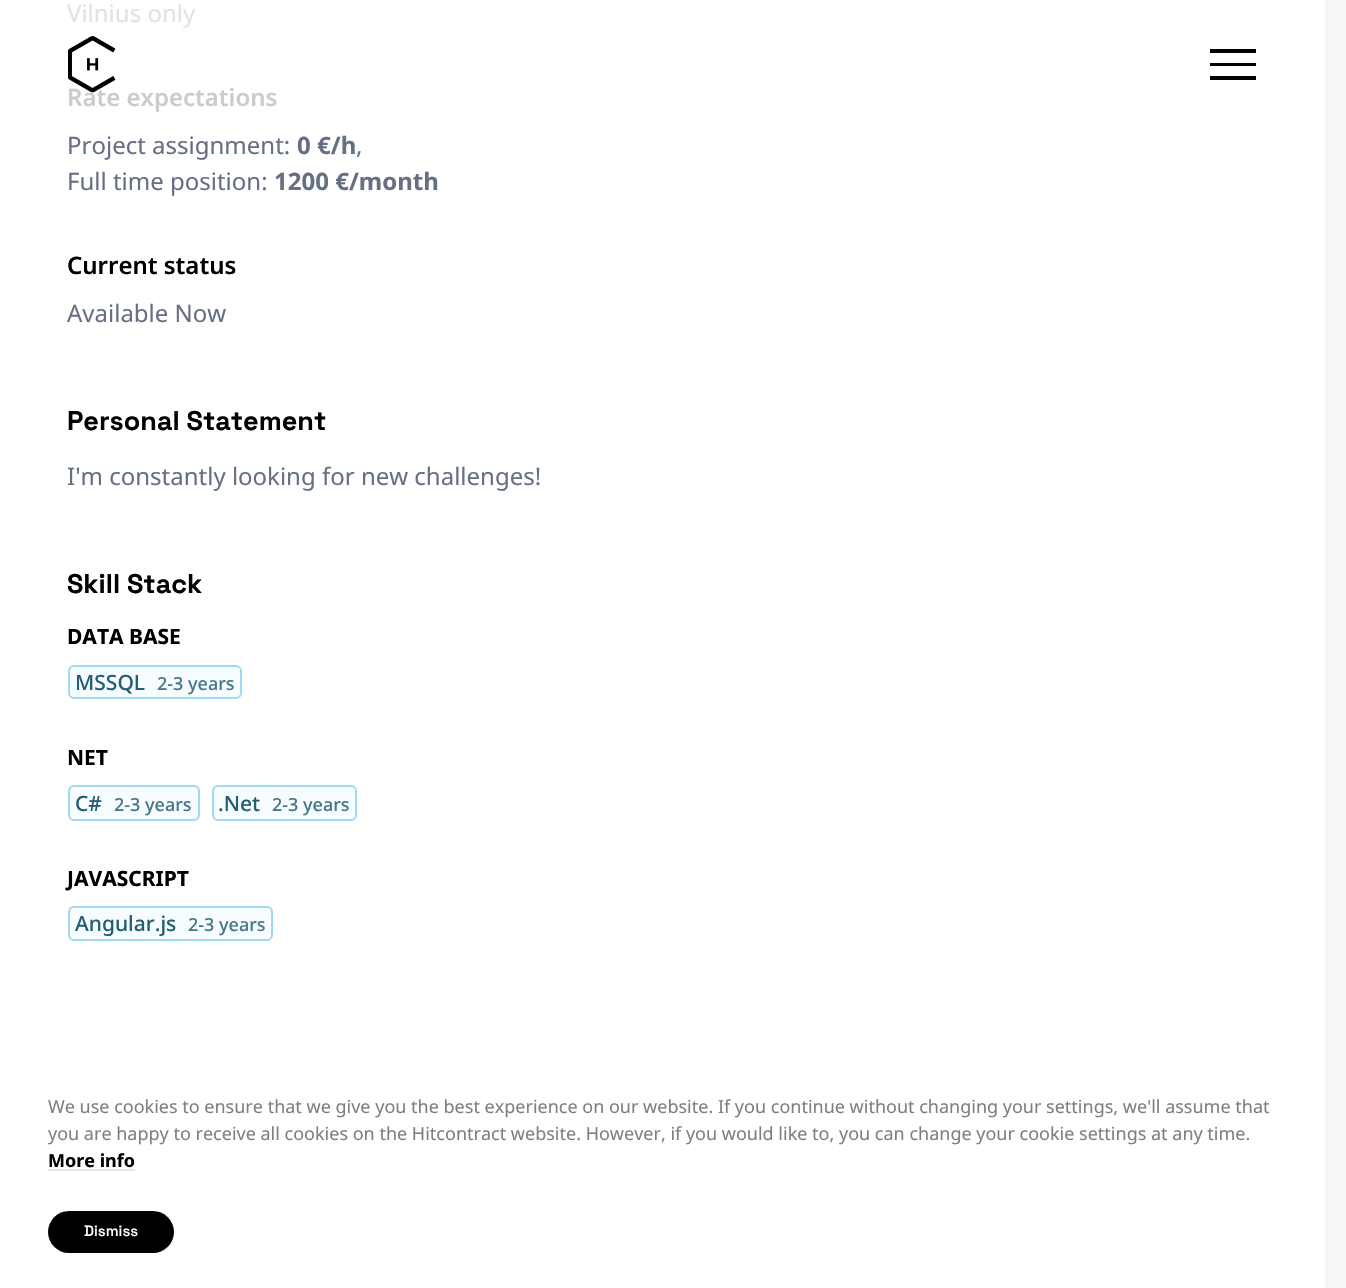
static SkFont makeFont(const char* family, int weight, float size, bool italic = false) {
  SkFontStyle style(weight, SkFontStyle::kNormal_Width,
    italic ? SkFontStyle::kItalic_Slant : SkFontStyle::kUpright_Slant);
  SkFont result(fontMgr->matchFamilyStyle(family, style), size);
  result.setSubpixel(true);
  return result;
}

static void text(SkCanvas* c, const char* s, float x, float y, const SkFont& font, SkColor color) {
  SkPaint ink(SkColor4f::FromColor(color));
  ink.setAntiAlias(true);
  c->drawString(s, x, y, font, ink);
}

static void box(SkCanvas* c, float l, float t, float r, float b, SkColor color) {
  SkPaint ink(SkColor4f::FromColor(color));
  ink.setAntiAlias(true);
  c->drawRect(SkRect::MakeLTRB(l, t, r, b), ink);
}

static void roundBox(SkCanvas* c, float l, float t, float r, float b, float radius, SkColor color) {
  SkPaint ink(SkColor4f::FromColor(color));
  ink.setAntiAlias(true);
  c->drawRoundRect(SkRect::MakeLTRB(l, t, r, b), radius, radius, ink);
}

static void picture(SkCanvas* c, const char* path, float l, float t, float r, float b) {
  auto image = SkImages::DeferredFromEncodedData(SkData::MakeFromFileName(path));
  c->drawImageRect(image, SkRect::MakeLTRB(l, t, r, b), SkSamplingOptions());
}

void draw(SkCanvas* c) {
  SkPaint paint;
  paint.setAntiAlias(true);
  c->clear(0xfff5f6f7);
  box(c, 0, 0, 1325, 1288, 0xffffffff);
  SkFont face1 = makeFont("Noto Sans", 400, 24);
  text(c, "Vilnius only", 67, 22, face1, 0xffe0e2e7);
  SkFont face2 = makeFont("Noto Sans", 600, 24);
  text(c, "Rate expectations", 67, 106, face2, 0xffcccccc);
  text(c, "Project assignment:", 67, 154, face1, 0xff667085);
  SkFont face3 = makeFont("Noto Sans", 700, 24);
  text(c, "0 €/h", 297, 154, face3, 0xff667085);
  text(c, ",", 356, 154, face1, 0xff667085);
  text(c, "Full time position:", 67, 190, face1, 0xff667085);
  text(c, "1200 €/month", 274, 190, face3, 0xff667085);
  text(c, "Current status", 67, 274, face2, 0xff000000);
  text(c, "Available Now", 67, 322, face1, 0xff667085);
  SkFont face4 = makeFont("Space Grotesk", 700, 27);
  text(c, "Personal Statement", 67, 430, face4, 0xff000000);
  text(c, "I'm constantly looking for new challenges!", 67, 485, face1, 0xff667085);
  text(c, "Skill Stack", 67, 593, face4, 0xff000000);
  SkFont face5 = makeFont("Noto Sans", 700, 21);
  text(c, "DATA BASE", 67, 644, face5, 0xff000000);
  paint.setColor(0xfff6fcff);
  c->drawRoundRect(SkRect::MakeLTRB(69, 666, 241, 698), 5, 5, paint);
  paint.setStyle(SkPaint::kStroke_Style);
  paint.setStrokeWidth(2);
  paint.setColor(0xff9edaf2);
  c->drawRoundRect(SkRect::MakeLTRB(69, 666, 241, 698), 5, 5, paint);
  SkFont face6 = makeFont("Noto Sans", 500, 21);
  text(c, "MSSQL", 75, 690, face6, 0xff235f74);
  SkFont face7 = makeFont("Noto Sans", 500, 18);
  text(c, "2-3 years", 157, 690, face7, 0xff437789);
  text(c, "NET", 67, 765, face5, 0xff000000);
  paint.setStyle(SkPaint::kFill_Style);
  paint.setColor(0xfff6fcff);
  c->drawRoundRect(SkRect::MakeLTRB(69, 786, 199, 820), 5, 5, paint);
  paint.setStyle(SkPaint::kStroke_Style);
  paint.setColor(0xff9edaf2);
  c->drawRoundRect(SkRect::MakeLTRB(69, 786, 199, 820), 5, 5, paint);
  text(c, "C#", 75, 811, face6, 0xff235f74);
  text(c, "2-3 years", 114, 811, face7, 0xff437789);
  paint.setStyle(SkPaint::kFill_Style);
  paint.setColor(0xfff6fcff);
  c->drawRoundRect(SkRect::MakeLTRB(213, 786, 356, 820), 5, 5, paint);
  paint.setStyle(SkPaint::kStroke_Style);
  paint.setColor(0xff9edaf2);
  c->drawRoundRect(SkRect::MakeLTRB(213, 786, 356, 820), 5, 5, paint);
  text(c, ".Net", 218, 811, face6, 0xff235f74);
  text(c, "2-3 years", 272, 811, face7, 0xff437789);
  text(c, "JAVASCRIPT", 67, 886, face5, 0xff000000);
  paint.setStyle(SkPaint::kFill_Style);
  paint.setColor(0xfff6fcff);
  c->drawRoundRect(SkRect::MakeLTRB(69, 907, 272, 940), 5, 5, paint);
  paint.setStyle(SkPaint::kStroke_Style);
  paint.setColor(0xff9edaf2);
  c->drawRoundRect(SkRect::MakeLTRB(69, 907, 272, 940), 5, 5, paint);
  text(c, "Angular.js", 75, 931, face6, 0xff235f74);
  text(c, "2-3 years", 188, 931, face7, 0xff437789);
  picture(c, "img_01.png", 68, 36, 116, 93);
  box(c, 1210, 63, 1256, 66, 0xff000000);
  box(c, 1210, 49, 1256, 53, 0xff000000);
  box(c, 1210, 76, 1256, 80, 0xff000000);
  SkFont face8 = makeFont("Noto Sans", 400, 18);
  text(c, "We use cookies to ensure that we give you the best experience on our website. If you continue without changing your settings, we'll assume that", 48, 1113, face8, 0xff7f7f7f);
  text(c, "you are happy to receive all cookies on the Hitcontract website. However, if you would like to, you can change your cookie settings at any time.", 48, 1140, face8, 0xff7f7f7f);
  SkFont face9 = makeFont("Noto Sans", 700, 18);
  text(c, "More info", 48, 1167, face9, 0xff000000);
  box(c, 48, 1169, 135, 1171, 0xffe6e6e6);
  roundBox(c, 48, 1211, 174, 1253, 21, 0xff000000);
  SkFont face10 = makeFont("Space Grotesk", 500, 15);
  text(c, "Dismiss", 84, 1236, face10, 0xffffffff);
}
